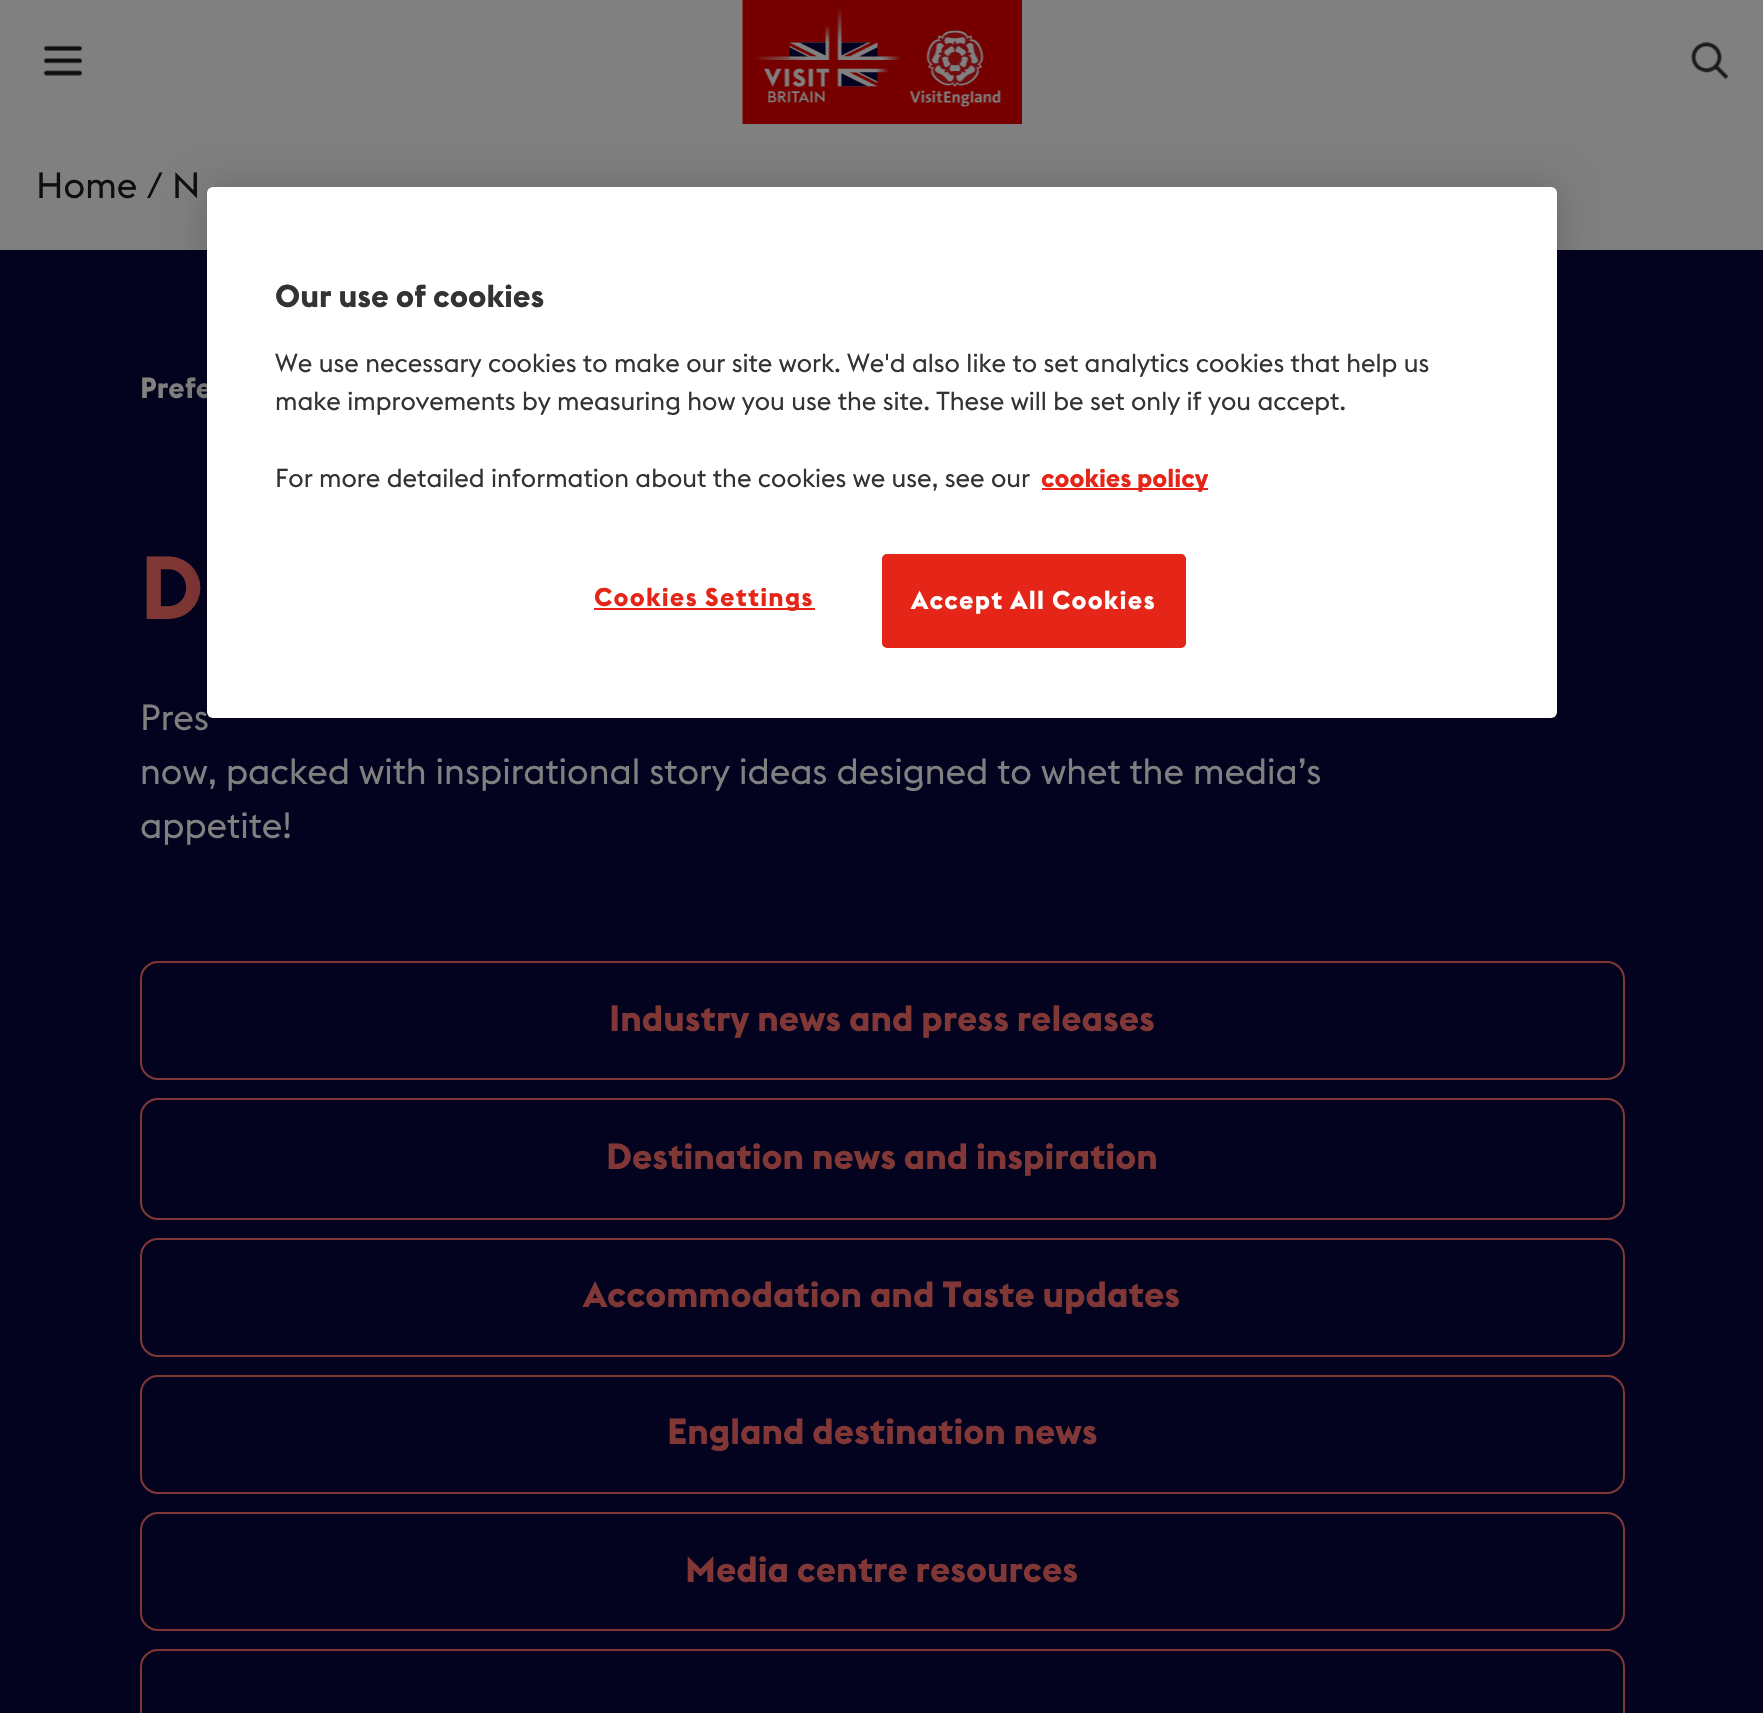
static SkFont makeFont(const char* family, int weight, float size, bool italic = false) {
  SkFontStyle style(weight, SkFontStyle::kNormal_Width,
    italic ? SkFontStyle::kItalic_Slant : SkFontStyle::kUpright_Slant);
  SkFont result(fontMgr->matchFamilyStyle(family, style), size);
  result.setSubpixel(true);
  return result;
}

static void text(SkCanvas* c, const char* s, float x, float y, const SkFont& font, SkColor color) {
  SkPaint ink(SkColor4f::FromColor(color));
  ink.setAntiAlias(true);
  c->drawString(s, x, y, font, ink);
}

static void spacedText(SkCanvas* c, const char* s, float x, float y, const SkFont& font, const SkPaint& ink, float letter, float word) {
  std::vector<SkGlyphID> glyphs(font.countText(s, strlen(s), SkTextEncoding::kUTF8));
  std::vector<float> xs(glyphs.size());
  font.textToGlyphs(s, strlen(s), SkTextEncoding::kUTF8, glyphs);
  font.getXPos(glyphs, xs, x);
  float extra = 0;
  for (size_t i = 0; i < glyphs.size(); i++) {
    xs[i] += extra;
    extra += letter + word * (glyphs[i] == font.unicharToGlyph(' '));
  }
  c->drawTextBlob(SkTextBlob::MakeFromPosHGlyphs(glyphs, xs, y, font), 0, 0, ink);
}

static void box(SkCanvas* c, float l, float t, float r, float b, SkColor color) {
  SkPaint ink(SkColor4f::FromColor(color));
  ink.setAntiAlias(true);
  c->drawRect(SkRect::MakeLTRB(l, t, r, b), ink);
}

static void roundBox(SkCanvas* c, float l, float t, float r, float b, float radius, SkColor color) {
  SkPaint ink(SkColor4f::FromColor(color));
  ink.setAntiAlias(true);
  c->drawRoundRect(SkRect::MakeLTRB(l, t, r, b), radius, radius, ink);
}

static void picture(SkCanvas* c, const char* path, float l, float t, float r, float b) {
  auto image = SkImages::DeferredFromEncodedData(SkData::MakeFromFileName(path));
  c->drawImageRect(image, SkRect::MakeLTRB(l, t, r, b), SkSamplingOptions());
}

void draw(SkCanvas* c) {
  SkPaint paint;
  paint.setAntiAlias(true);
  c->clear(0xff808080);
  box(c, 743, 0, 1022, 124, 0xff760000);
  picture(c, "img_01.png", 742, 0, 1001, 124);
  picture(c, "img_02.png", 43, 45, 82, 76);
  picture(c, "img_03.png", 1691, 42, 1729, 80);
  SkFont face1 = makeFont("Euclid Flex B", 400, 36);
  text(c, "Home / N", 36, 198, face1, 0xff0e0e0e);
  box(c, 0, 250, 1763, 1713, 0xff030320);
  SkFont face2 = makeFont("Euclid Flex B", 700, 29);
  text(c, "Prefe", 140, 398, face2, 0xff808080);
  SkFont face3 = makeFont("Euclid Flex B", 700, 88);
  text(c, "D", 140, 619, face3, 0xff803735);
  text(c, "Pres", 140, 730, face1, 0xff808080);
  text(c, "now, packed with inspirational story ideas designed to whet the media’s", 140, 784, face1, 0xff808080);
  text(c, "appetite!", 140, 838, face1, 0xff808080);
  paint.setStyle(SkPaint::kStroke_Style);
  paint.setStrokeWidth(2);
  paint.setColor(0xff803735);
  c->drawRoundRect(SkRect::MakeLTRB(141, 962, 1624, 1079), 17, 17, paint);
  SkFont face4 = makeFont("Euclid Flex B", 700, 36);
  text(c, "Industry news and press releases", 609, 1031, face4, 0xff803735);
  c->drawRoundRect(SkRect::MakeLTRB(141, 1099, 1624, 1219), 17, 17, paint);
  text(c, "Destination news and inspiration", 606, 1169, face4, 0xff803735);
  c->drawRoundRect(SkRect::MakeLTRB(141, 1239, 1624, 1356), 17, 17, paint);
  text(c, "Accommodation and Taste updates", 583, 1307, face4, 0xff803735);
  c->drawRoundRect(SkRect::MakeLTRB(141, 1376, 1624, 1493), 17, 17, paint);
  text(c, "England destination news", 667, 1444, face4, 0xff803735);
  c->drawRoundRect(SkRect::MakeLTRB(141, 1513, 1624, 1630), 17, 17, paint);
  text(c, "Media centre resources", 685, 1582, face4, 0xff803735);
  c->drawRoundRect(SkRect::MakeLTRB(141, 1650, 1624, 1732), 17, 17, paint);
  paint.setStyle(SkPaint::kFill_Style);
  paint.setColor(0x33000000);
  paint.setMaskFilter(SkMaskFilter::MakeBlur(kNormal_SkBlurStyle, 20));
  c->drawRoundRect(SkRect::MakeLTRB(207, 187, 1557, 718), 6, 6, paint);
  paint.setMaskFilter(nullptr);
  roundBox(c, 207, 187, 1557, 718, 6, 0xffffffff);
  SkFont face5 = makeFont("Euclid Flex B", 700, 31.5f);
  text(c, "Our use of cookies", 275, 307, face5, 0xff333333);
  SkFont face6 = makeFont("Euclid Flex B", 400, 25.6f);
  text(c, "We use necessary cookies to make our site work. We'd also like to set analytics cookies that help us", 275, 372, face6, 0xff333333);
  text(c, "make improvements by measuring how you use the site. These will be set only if you accept.", 275, 410, face6, 0xff333333);
  text(c, "For more detailed information about the cookies we use, see our", 275, 487, face6, 0xff333333);
  box(c, 1042, 488, 1208, 490, 0xffe42518);
  SkFont face7 = makeFont("Euclid Flex B", 700, 25.6f);
  text(c, "cookies policy", 1041, 487, face7, 0xffe42518);
  box(c, 594, 608, 815, 610, 0xffe42518);
  paint.setColor(0xffe42518);
  spacedText(c, "Cookies Settings", 594, 606, face7, paint, 1.25f, 0);
  c->drawRoundRect(SkRect::MakeLTRB(883, 555, 1185, 647), 4, 4, paint);
  paint.setStyle(SkPaint::kStroke_Style);
  c->drawRoundRect(SkRect::MakeLTRB(883, 555, 1185, 647), 4, 4, paint);
  paint.setStyle(SkPaint::kFill_Style);
  paint.setColor(0xffffffff);
  spacedText(c, "Accept All Cookies", 911, 609, face7, paint, 1.25f, 0);
}
